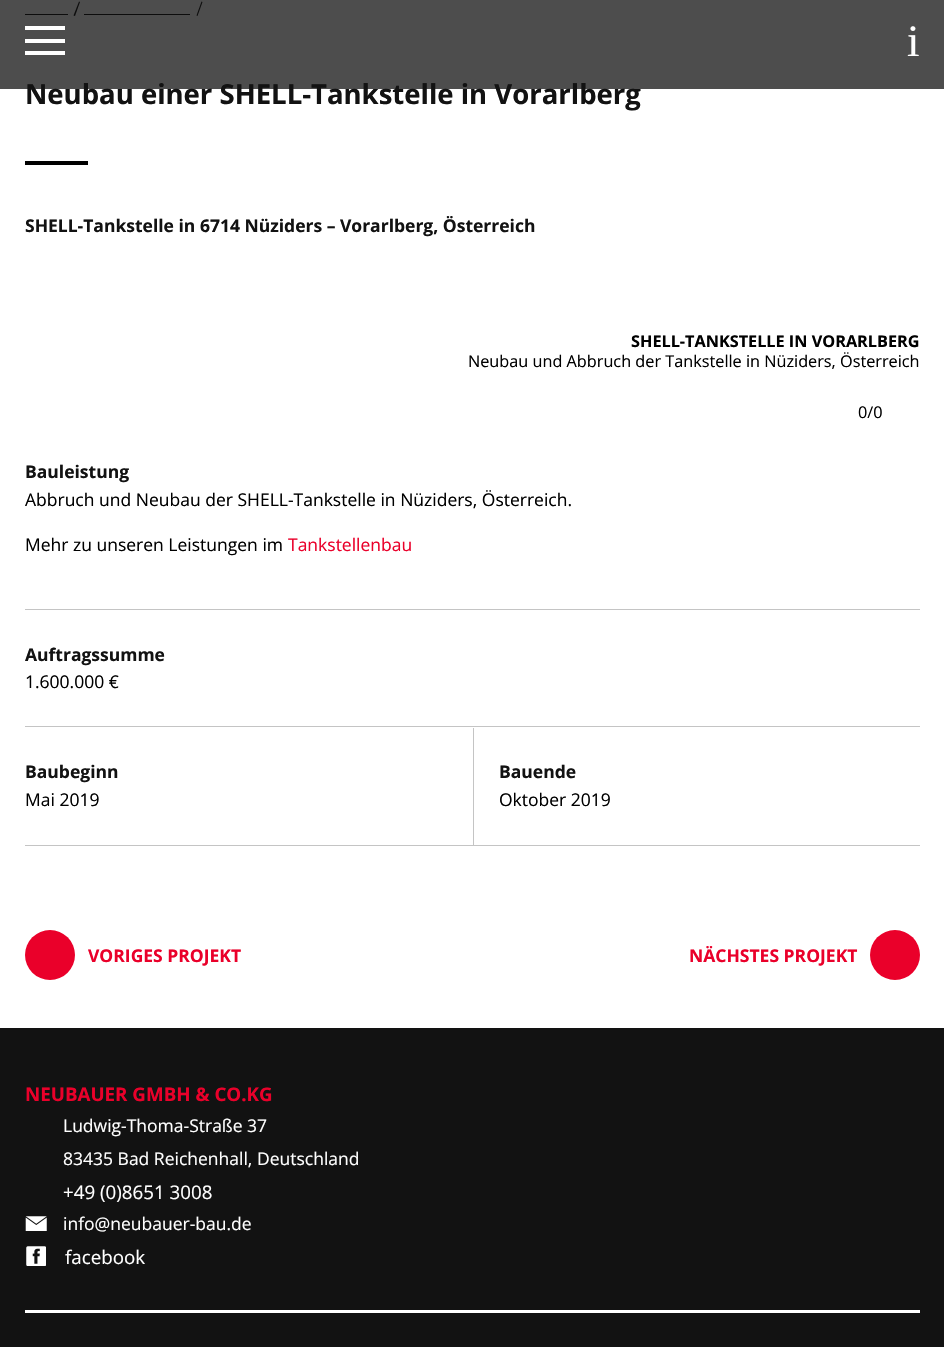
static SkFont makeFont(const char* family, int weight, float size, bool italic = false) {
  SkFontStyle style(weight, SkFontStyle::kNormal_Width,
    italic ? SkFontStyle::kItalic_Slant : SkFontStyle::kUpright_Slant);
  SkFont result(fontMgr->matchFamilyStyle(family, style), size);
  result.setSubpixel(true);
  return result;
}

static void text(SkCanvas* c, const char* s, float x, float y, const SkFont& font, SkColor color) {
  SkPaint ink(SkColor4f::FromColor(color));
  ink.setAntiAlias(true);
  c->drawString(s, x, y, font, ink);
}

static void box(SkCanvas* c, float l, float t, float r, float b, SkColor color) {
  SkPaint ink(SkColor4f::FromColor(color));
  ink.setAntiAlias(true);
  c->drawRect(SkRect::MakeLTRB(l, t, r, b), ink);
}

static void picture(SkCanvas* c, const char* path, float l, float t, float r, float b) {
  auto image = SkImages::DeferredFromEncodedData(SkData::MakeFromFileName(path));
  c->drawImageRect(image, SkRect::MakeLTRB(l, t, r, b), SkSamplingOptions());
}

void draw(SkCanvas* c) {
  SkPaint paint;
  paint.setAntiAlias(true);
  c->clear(0xffffffff);
  box(c, 25, 14, 68, 15, 0xff000000);
  paint.setColor(0xff000000);
  c->drawPath(SkPathBuilder().moveTo(79, 1.5f).lineTo(80, 2).lineTo(75, 16).lineTo(73.5f, 15.5f).close().detach(), paint);
  box(c, 84, 14, 190, 15, 0xff000000);
  c->drawPath(SkPathBuilder().moveTo(201.5f, 1.5f).lineTo(202.5f, 2).lineTo(197.5f, 16).lineTo(196.5f, 15.5f).close().detach(), paint);
  SkFont face1 = makeFont("Open Sans", 700, 27.5f);
  text(c, "Neubau einer SHELL-Tankstelle in Vorarlberg", 25, 104, face1, 0xff121212);
  box(c, 0, 0, 944, 89, 0xbf121212);
  box(c, 25, 26, 65, 30, 0xffffffff);
  box(c, 25, 39, 65, 43, 0xffffffff);
  box(c, 25, 51, 65, 55, 0xffffffff);
  SkFont face2 = makeFont("Liberation Serif", 400, 45);
  text(c, "i", 907, 56, face2, 0xffffffff);
  box(c, 25, 161, 88, 165, 0xff000000);
  SkFont face3 = makeFont("Open Sans", 700, 17.5f);
  text(c, "SHELL-Tankstelle in 6714 Nüziders – Vorarlberg, Österreich", 25, 232, face3, 0xff121212);
  SkFont face4 = makeFont("Open Sans", 700, 16.25f);
  text(c, "SHELL-TANKSTELLE IN VORARLBERG", 631, 347, face4, 0xff000000);
  SkFont face5 = makeFont("Open Sans", 400, 16.25f);
  text(c, "Neubau und Abbruch der Tankstelle in Nüziders, Österreich", 468, 367, face5, 0xff000000);
  text(c, "0/0", 858, 418, face5, 0xff000000);
  text(c, "Bauleistung", 25, 478, face3, 0xff121212);
  SkFont face6 = makeFont("Open Sans", 400, 17.5f);
  text(c, "Abbruch und Neubau der SHELL-Tankstelle in Nüziders, Österreich.", 25, 506, face6, 0xff000000);
  text(c, "Mehr zu unseren Leistungen im", 25, 551, face6, 0xff000000);
  text(c, "Tankstellenbau", 288, 551, face6, 0xffea002a);
  box(c, 25, 609, 920, 610, 0xffc4c4c4);
  box(c, 25, 845, 920, 846, 0xffc4c4c4);
  text(c, "Auftragssumme", 25, 661, face3, 0xff121212);
  text(c, "1.600.000 €", 25, 688, face6, 0xff000000);
  box(c, 25, 726, 920, 727, 0xffc4c4c4);
  text(c, "Baubeginn", 25, 778, face3, 0xff121212);
  text(c, "Mai 2019", 25, 806, face6, 0xff000000);
  box(c, 473, 728, 474, 845, 0xffc4c4c4);
  text(c, "Bauende", 499, 778, face3, 0xff121212);
  text(c, "Oktober 2019", 499, 806, face6, 0xff000000);
  paint.setColor(0xffea002a);
  c->drawCircle(50, 955, 25, paint);
  text(c, "VORIGES PROJEKT", 88, 962, face3, 0xffea002a);
  text(c, "NÄCHSTES PROJEKT", 689, 962, face3, 0xffea002a);
  c->drawCircle(895, 955, 25, paint);
  box(c, 0, 1028, 944, 1347, 0xff121212);
  SkFont face7 = makeFont("Open Sans", 700, 18.75f);
  text(c, "NEUBAUER GMBH & CO.KG", 25, 1101, face7, 0xffea002a);
  text(c, "Ludwig-Thoma-Straße 37", 63, 1132, face6, 0xffffffff);
  text(c, "83435 Bad Reichenhall, Deutschland", 63, 1165, face6, 0xffffffff);
  SkFont face8 = makeFont("Open Sans", 400, 18.75f);
  text(c, "+49 (0)8651 3008", 63, 1199, face8, 0xffffffff);
  picture(c, "img_01.png", 25, 1216, 47, 1231);
  text(c, "info@neubauer-bau.de", 63, 1230, face6, 0xffffffff);
  picture(c, "img_02.png", 26, 1246, 46, 1266);
  text(c, "facebook", 65, 1264, face8, 0xffffffff);
  box(c, 25, 1310, 920, 1313, 0xffffffff);
}
